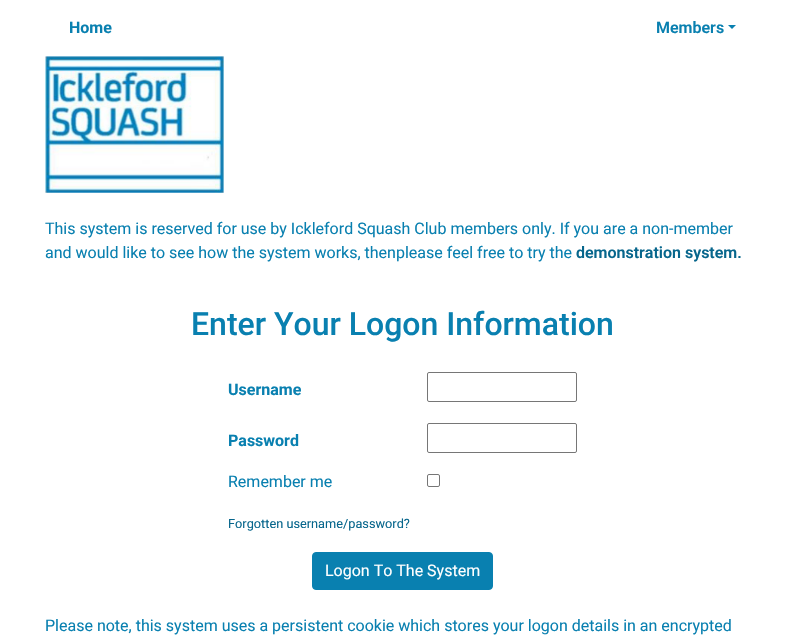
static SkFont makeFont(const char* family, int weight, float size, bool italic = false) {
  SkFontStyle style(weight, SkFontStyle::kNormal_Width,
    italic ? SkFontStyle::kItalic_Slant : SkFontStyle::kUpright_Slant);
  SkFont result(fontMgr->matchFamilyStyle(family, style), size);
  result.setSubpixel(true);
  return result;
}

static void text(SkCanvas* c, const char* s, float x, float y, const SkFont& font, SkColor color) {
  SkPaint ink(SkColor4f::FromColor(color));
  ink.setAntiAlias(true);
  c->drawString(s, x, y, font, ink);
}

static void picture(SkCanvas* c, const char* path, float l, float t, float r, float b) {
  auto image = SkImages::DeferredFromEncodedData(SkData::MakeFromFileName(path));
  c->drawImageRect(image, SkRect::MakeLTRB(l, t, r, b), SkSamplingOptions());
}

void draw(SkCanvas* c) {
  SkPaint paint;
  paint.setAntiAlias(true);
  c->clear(0xffffffff);
  SkFont face1 = makeFont("Roboto", 700, 16);
  text(c, "Home", 69, 33, face1, 0xff0980b0);
  SkFont face2 = makeFont("Roboto", 600, 16);
  text(c, "Members", 656, 33, face2, 0xff0980b0);
  paint.setColor(0xff0980b0);
  c->drawPath(SkPathBuilder().moveTo(728, 25).lineTo(736, 25).lineTo(732, 29).close().detach(), paint);
  picture(c, "img_01.png", 45, 56, 224, 193);
  SkFont face3 = makeFont("Roboto", 400, 16);
  text(c, "This system is reserved for use by Ickleford Squash Club members only. If you are a non-member", 45, 234, face3, 0xff0980b0);
  text(c, "and would like to see how the system works, thenplease feel free to try the", 45, 258, face3, 0xff0980b0);
  text(c, "demonstration system.", 576, 258, face2, 0xff07668c);
  SkFont face4 = makeFont("Roboto", 500, 32);
  text(c, "Enter Your Logon Information", 191, 335, face4, 0xff0980b0);
  text(c, "Username", 228, 395, face1, 0xff0980b0);
  paint.setStyle(SkPaint::kStroke_Style);
  paint.setStrokeWidth(1);
  paint.setColor(0xff767676);
  c->drawRoundRect(SkRect::MakeLTRB(427.5f, 372.5f, 576.5f, 401.5f), 1.5f, 1.5f, paint);
  text(c, "Password", 228, 446, face1, 0xff0980b0);
  c->drawRoundRect(SkRect::MakeLTRB(427.5f, 423.5f, 576.5f, 452.5f), 1.5f, 1.5f, paint);
  text(c, "Remember me", 228, 487, face3, 0xff0980b0);
  c->drawRoundRect(SkRect::MakeLTRB(427.5f, 474.5f, 439.5f, 486.5f), 1.5f, 1.5f, paint);
  SkFont face5 = makeFont("Roboto", 400, 12.75f);
  text(c, "Forgotten username/password?", 228, 528, face5, 0xff07668c);
  paint.setStyle(SkPaint::kFill_Style);
  paint.setColor(0xff0980b0);
  c->drawRoundRect(SkRect::MakeLTRB(312.5f, 552.5f, 492.5f, 589.5f), 3.5f, 3.5f, paint);
  paint.setStyle(SkPaint::kStroke_Style);
  c->drawRoundRect(SkRect::MakeLTRB(312.5f, 552.5f, 492.5f, 589.5f), 3.5f, 3.5f, paint);
  text(c, "Logon To The System", 325, 576, face3, 0xffffffff);
  text(c, "Please note, this system uses a persistent cookie which stores your logon details in an encrypted", 45, 631, face3, 0xff0980b0);
}
